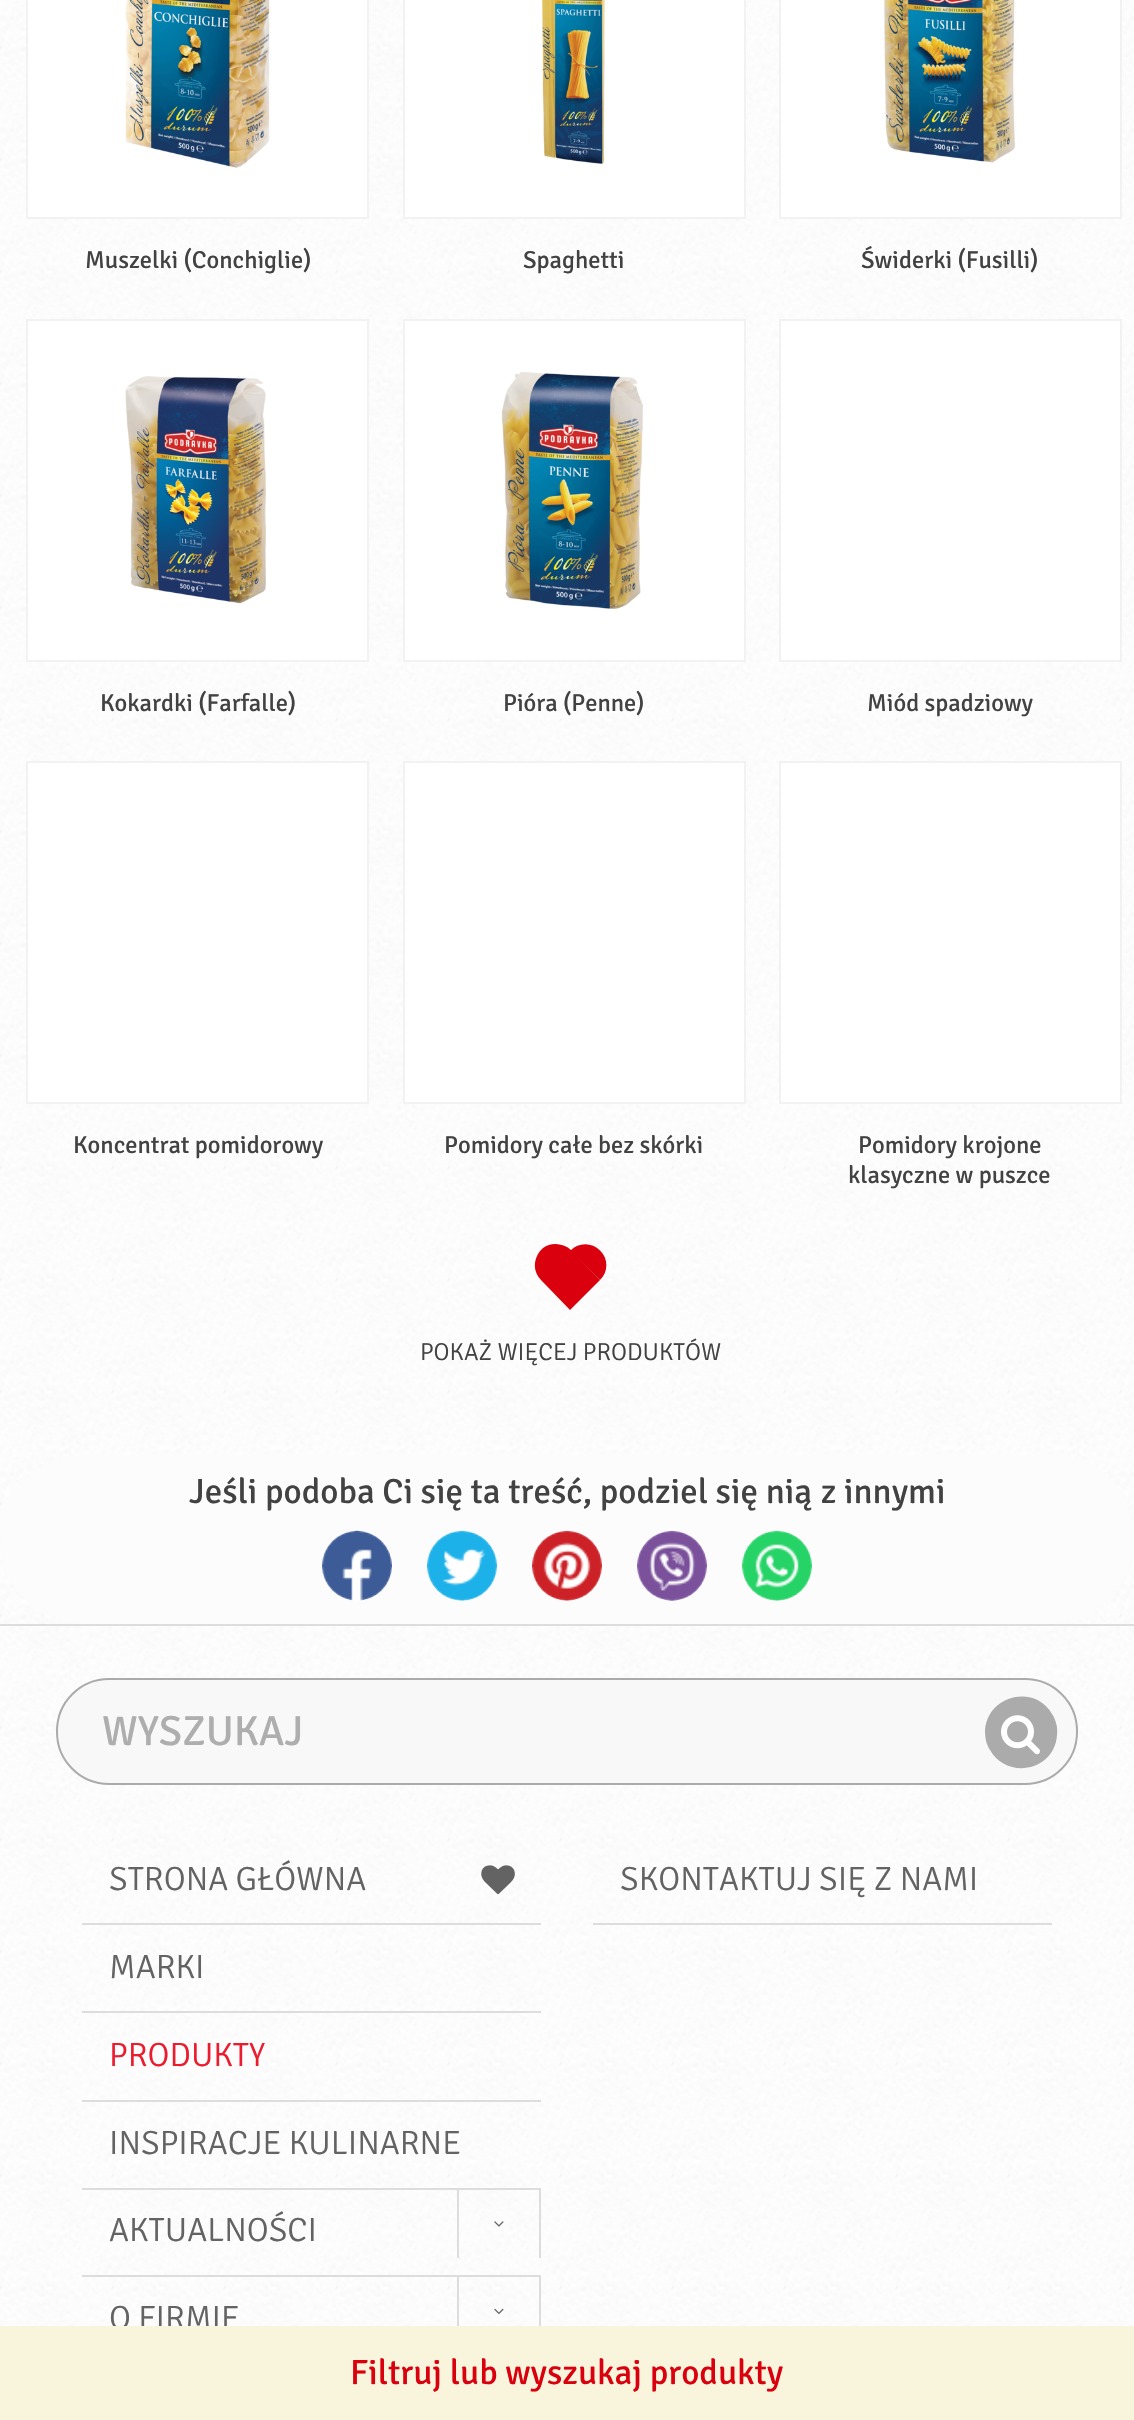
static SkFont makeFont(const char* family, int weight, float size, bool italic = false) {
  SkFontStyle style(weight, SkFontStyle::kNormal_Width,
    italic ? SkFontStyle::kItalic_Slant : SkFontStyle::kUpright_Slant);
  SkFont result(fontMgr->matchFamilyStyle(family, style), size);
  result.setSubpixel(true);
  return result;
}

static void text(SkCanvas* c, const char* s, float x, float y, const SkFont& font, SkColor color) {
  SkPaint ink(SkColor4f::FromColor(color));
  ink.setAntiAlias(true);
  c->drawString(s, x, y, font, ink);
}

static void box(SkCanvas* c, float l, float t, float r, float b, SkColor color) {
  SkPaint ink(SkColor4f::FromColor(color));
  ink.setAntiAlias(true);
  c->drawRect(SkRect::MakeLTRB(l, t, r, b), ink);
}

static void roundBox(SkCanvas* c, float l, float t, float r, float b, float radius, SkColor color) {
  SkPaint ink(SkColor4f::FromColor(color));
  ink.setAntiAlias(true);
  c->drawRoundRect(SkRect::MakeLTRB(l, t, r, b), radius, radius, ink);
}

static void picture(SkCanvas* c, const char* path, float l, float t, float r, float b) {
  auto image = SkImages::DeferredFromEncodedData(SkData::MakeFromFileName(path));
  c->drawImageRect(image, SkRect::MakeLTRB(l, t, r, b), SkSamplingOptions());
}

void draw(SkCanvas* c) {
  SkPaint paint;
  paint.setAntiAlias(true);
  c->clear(0xffffffff);
  picture(c, "img_01.png", 0, 0, 1134, 2326);
  paint.setColor(0xffffffff);
  c->drawRect(SkRect::MakeLTRB(27, -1, 368, 218), paint);
  paint.setStyle(SkPaint::kStroke_Style);
  paint.setStrokeWidth(2);
  paint.setColor(0xfff2f2f2);
  c->drawRect(SkRect::MakeLTRB(27, -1, 368, 218), paint);
  picture(c, "img_02.png", 125, 0, 270, 168);
  SkFont face1 = makeFont("Signika", 400, 24.5f);
  text(c, "Muszelki (Conchiglie)", 85, 268, face1, 0xff424242);
  paint.setStyle(SkPaint::kFill_Style);
  paint.setColor(0xffffffff);
  c->drawRect(SkRect::MakeLTRB(404, -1, 745, 218), paint);
  paint.setStyle(SkPaint::kStroke_Style);
  paint.setColor(0xfff2f2f2);
  c->drawRect(SkRect::MakeLTRB(404, -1, 745, 218), paint);
  picture(c, "img_03.png", 542, 0, 605, 164);
  text(c, "Spaghetti", 523, 268, face1, 0xff424242);
  paint.setStyle(SkPaint::kFill_Style);
  paint.setColor(0xffffffff);
  c->drawRect(SkRect::MakeLTRB(780, -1, 1121, 218), paint);
  paint.setStyle(SkPaint::kStroke_Style);
  paint.setColor(0xfff2f2f2);
  c->drawRect(SkRect::MakeLTRB(780, -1, 1121, 218), paint);
  picture(c, "img_04.png", 884, 0, 1015, 163);
  text(c, "Świderki (Fusilli)", 861, 268, face1, 0xff424242);
  paint.setStyle(SkPaint::kFill_Style);
  paint.setColor(0xffffffff);
  c->drawRect(SkRect::MakeLTRB(27, 320, 368, 661), paint);
  paint.setStyle(SkPaint::kStroke_Style);
  paint.setColor(0xfff2f2f2);
  c->drawRect(SkRect::MakeLTRB(27, 320, 368, 661), paint);
  picture(c, "img_05.png", 125, 376, 266, 604);
  text(c, "Kokardki (Farfalle)", 100, 711, face1, 0xff424242);
  paint.setStyle(SkPaint::kFill_Style);
  paint.setColor(0xffffffff);
  c->drawRect(SkRect::MakeLTRB(404, 320, 745, 661), paint);
  paint.setStyle(SkPaint::kStroke_Style);
  paint.setColor(0xfff2f2f2);
  c->drawRect(SkRect::MakeLTRB(404, 320, 745, 661), paint);
  picture(c, "img_06.png", 501, 372, 643, 609);
  text(c, "Pióra (Penne)", 503, 711, face1, 0xff424242);
  paint.setStyle(SkPaint::kFill_Style);
  paint.setColor(0xffffffff);
  c->drawRect(SkRect::MakeLTRB(780, 320, 1121, 661), paint);
  paint.setStyle(SkPaint::kStroke_Style);
  paint.setColor(0xfff2f2f2);
  c->drawRect(SkRect::MakeLTRB(780, 320, 1121, 661), paint);
  text(c, "Miód spadziowy", 867, 711, face1, 0xff424242);
  paint.setStyle(SkPaint::kFill_Style);
  paint.setColor(0xffffffff);
  c->drawRect(SkRect::MakeLTRB(27, 762, 368, 1103), paint);
  paint.setStyle(SkPaint::kStroke_Style);
  paint.setColor(0xfff2f2f2);
  c->drawRect(SkRect::MakeLTRB(27, 762, 368, 1103), paint);
  text(c, "Koncentrat pomidorowy", 73, 1153, face1, 0xff424242);
  paint.setStyle(SkPaint::kFill_Style);
  paint.setColor(0xffffffff);
  c->drawRect(SkRect::MakeLTRB(404, 762, 745, 1103), paint);
  paint.setStyle(SkPaint::kStroke_Style);
  paint.setColor(0xfff2f2f2);
  c->drawRect(SkRect::MakeLTRB(404, 762, 745, 1103), paint);
  text(c, "Pomidory całe bez skórki", 444, 1153, face1, 0xff424242);
  paint.setStyle(SkPaint::kFill_Style);
  paint.setColor(0xffffffff);
  c->drawRect(SkRect::MakeLTRB(780, 762, 1121, 1103), paint);
  paint.setStyle(SkPaint::kStroke_Style);
  paint.setColor(0xfff2f2f2);
  c->drawRect(SkRect::MakeLTRB(780, 762, 1121, 1103), paint);
  text(c, "Pomidory krojone", 858, 1153, face1, 0xff424242);
  text(c, "klasyczne w puszce", 848, 1183, face1, 0xff424242);
  paint.setStyle(SkPaint::kFill_Style);
  paint.setColor(0xffda000d);
  c->drawPath(SkPathBuilder().moveTo(571, 1250).lineTo(600, 1280).lineTo(570, 1310).lineTo(541, 1280).cubicTo(533, 1272, 533, 1260, 540, 1251).lineTo(543, 1248).cubicTo(551, 1242, 563, 1243, 571, 1250).close().detach(), paint);
  c->drawPath(SkPathBuilder().moveTo(600, 1250.5f).cubicTo(608.5f, 1258.5f, 608.5f, 1272, 600, 1280).lineTo(570.5f, 1250.5f).cubicTo(578.5f, 1242, 592, 1242, 600, 1250.5f).close().detach(), paint);
  SkFont face2 = makeFont("Signika", 300, 24.5f);
  text(c, "POKAŻ WIĘCEJ PRODUKTÓW", 420, 1360, face2, 0xff424242);
  SkFont face3 = makeFont("Signika", 300, 33.6f);
  text(c, "O FIRMIE", 109, 2329, face3, 0xff636363);
  box(c, 0, 2326, 1134, 2420, 0xfff8f5dc);
  SkFont face4 = makeFont("Signika", 400, 35);
  text(c, "Filtruj lub wyszukaj produkty", 350, 2384, face4, 0xffda000d);
  roundBox(c, 0, 1454, 1134, 1624, 85, 0xfffcfcfc);
  text(c, "Jeśli podoba Ci się ta treść, podziel się nią z innymi", 189, 1503, face4, 0xff424242);
  picture(c, "img_07.png", 322, 1530, 392, 1601);
  picture(c, "img_08.png", 427, 1530, 497, 1601);
  picture(c, "img_09.png", 532, 1530, 602, 1601);
  picture(c, "img_10.png", 637, 1530, 707, 1601);
  picture(c, "img_11.png", 742, 1530, 812, 1601);
  box(c, 0, 1624, 1134, 1626, 0xffdddddd);
  paint.setColor(0xfff8f8f8);
  c->drawRoundRect(SkRect::MakeLTRB(57, 1679, 1077, 1784), 52, 52, paint);
  paint.setStyle(SkPaint::kStroke_Style);
  paint.setColor(0xffababab);
  c->drawRoundRect(SkRect::MakeLTRB(57, 1679, 1077, 1784), 52, 52, paint);
  SkFont face5 = makeFont("Signika", 400, 42);
  text(c, "WYSZUKAJ", 102, 1745, face5, 0xffaeaeae);
  paint.setStyle(SkPaint::kFill_Style);
  c->drawPath(SkPathBuilder().moveTo(1052, 1714).cubicTo(1056, 1720, 1058, 1728, 1057, 1735).cubicTo(1055, 1770, 1008, 1781, 990, 1750).cubicTo(986, 1744, 985, 1737, 985, 1730).cubicTo(988, 1695, 1035, 1684, 1052, 1714).close().detach(), paint);
  picture(c, "img_12.png", 1001, 1715, 1040, 1755);
  box(c, 82, 1923, 541, 1925, 0xffdddddd);
  text(c, "STRONA GŁÓWNA", 109, 1890, face3, 0xff636363);
  picture(c, "img_13.png", 481, 1865, 515, 1895);
  box(c, 82, 2011, 541, 2013, 0xffdddddd);
  text(c, "MARKI", 109, 1978, face3, 0xff636363);
  box(c, 82, 2100, 541, 2102, 0xffdddddd);
  text(c, "PRODUKTY", 109, 2066, face3, 0xffed1b2e);
  box(c, 82, 2188, 541, 2190, 0xffdddddd);
  text(c, "INSPIRACJE KULINARNE", 109, 2154, face3, 0xff636363);
  box(c, 82, 2275, 541, 2277, 0xffdddddd);
  text(c, "AKTUALNOŚCI", 109, 2241, face3, 0xff636363);
  box(c, 539, 2189, 541, 2258, 0xffdddddd);
  box(c, 457, 2189, 459, 2258, 0xffdddddd);
  picture(c, "img_14.png", 494, 2221, 504, 2227);
  box(c, 539, 2277, 541, 2326, 0xffdddddd);
  box(c, 457, 2277, 459, 2326, 0xffdddddd);
  picture(c, "img_15.png", 494, 2308, 504, 2315);
  box(c, 593, 1923, 1052, 1925, 0xffdddddd);
  text(c, "SKONTAKTUJ SIĘ Z NAMI", 620, 1890, face3, 0xff636363);
}
